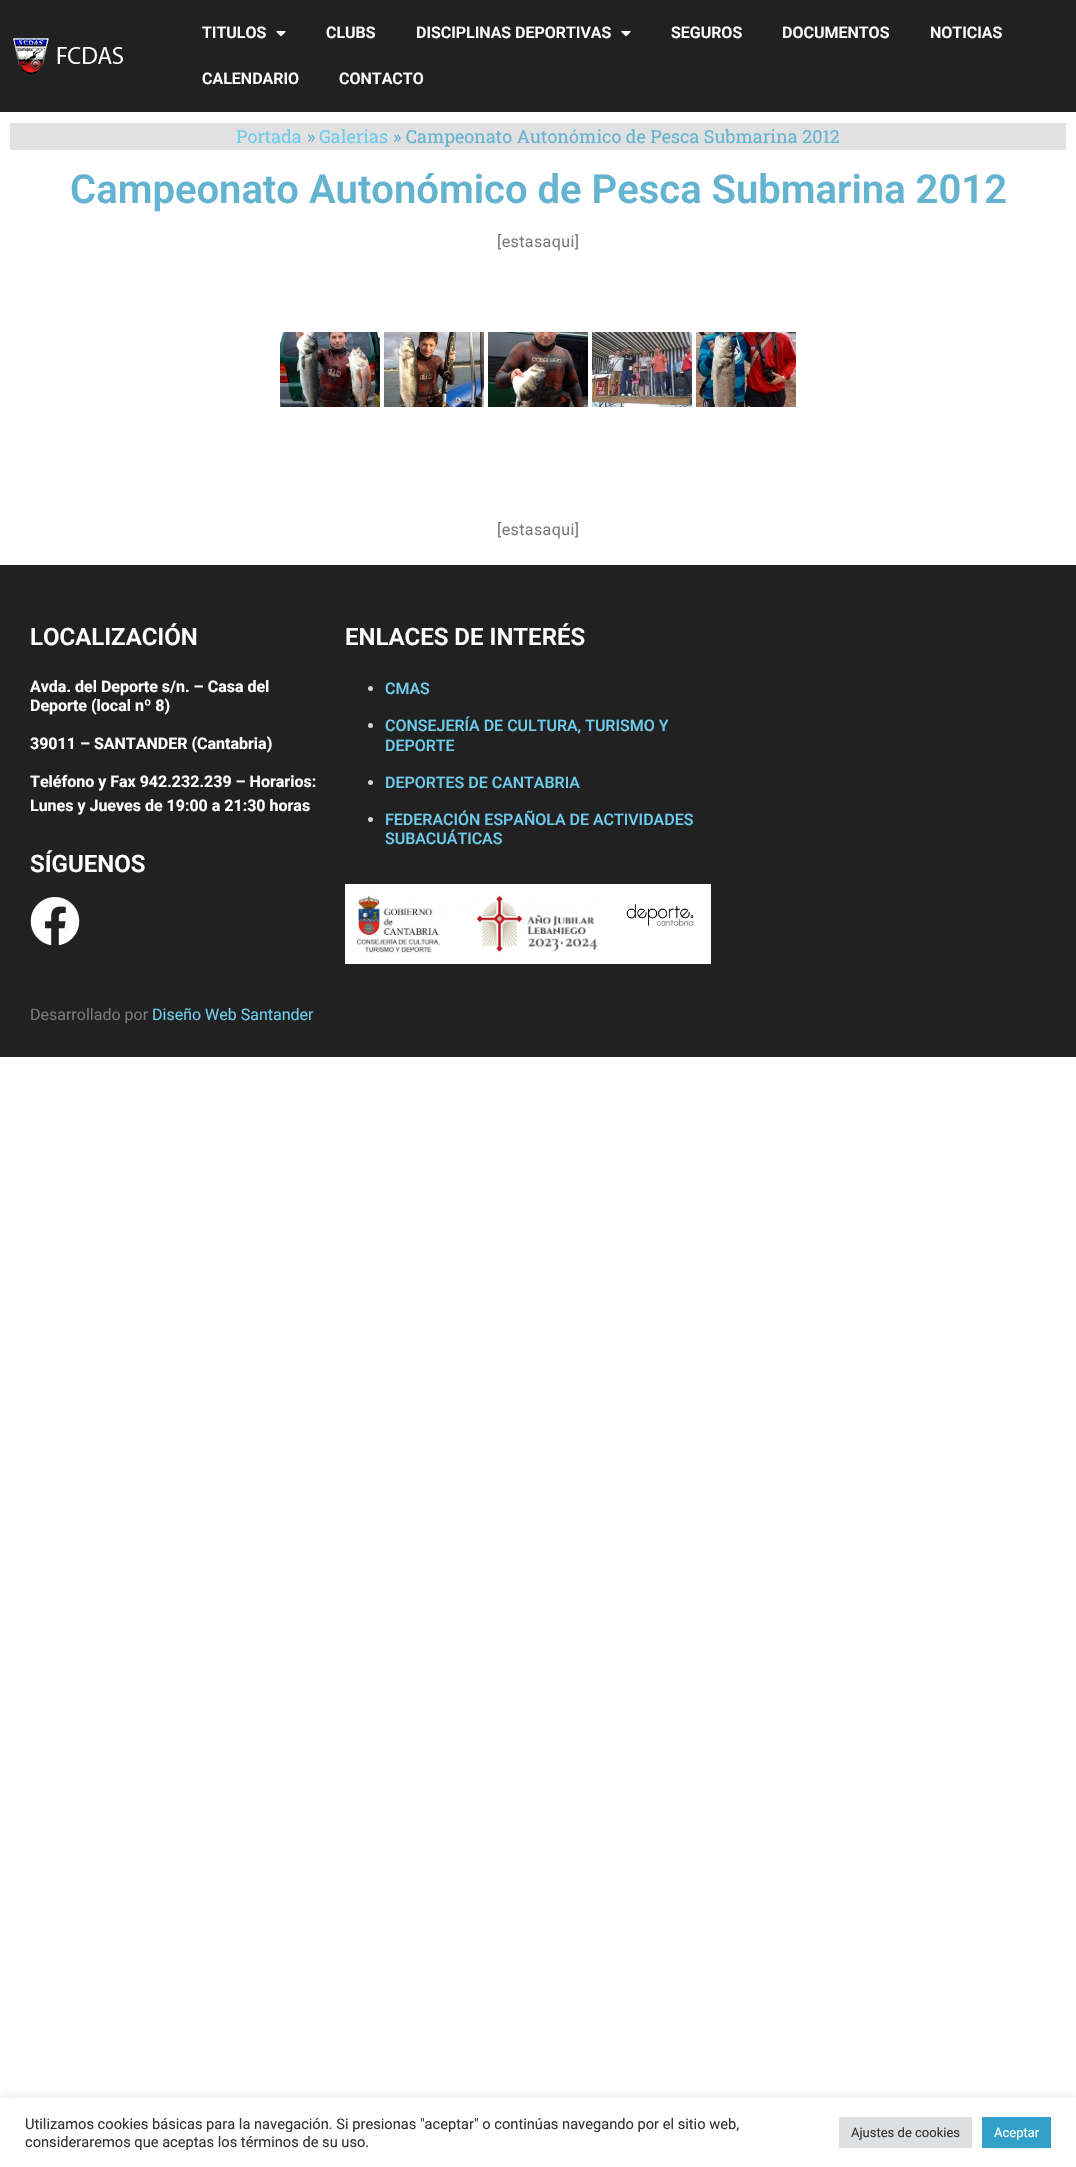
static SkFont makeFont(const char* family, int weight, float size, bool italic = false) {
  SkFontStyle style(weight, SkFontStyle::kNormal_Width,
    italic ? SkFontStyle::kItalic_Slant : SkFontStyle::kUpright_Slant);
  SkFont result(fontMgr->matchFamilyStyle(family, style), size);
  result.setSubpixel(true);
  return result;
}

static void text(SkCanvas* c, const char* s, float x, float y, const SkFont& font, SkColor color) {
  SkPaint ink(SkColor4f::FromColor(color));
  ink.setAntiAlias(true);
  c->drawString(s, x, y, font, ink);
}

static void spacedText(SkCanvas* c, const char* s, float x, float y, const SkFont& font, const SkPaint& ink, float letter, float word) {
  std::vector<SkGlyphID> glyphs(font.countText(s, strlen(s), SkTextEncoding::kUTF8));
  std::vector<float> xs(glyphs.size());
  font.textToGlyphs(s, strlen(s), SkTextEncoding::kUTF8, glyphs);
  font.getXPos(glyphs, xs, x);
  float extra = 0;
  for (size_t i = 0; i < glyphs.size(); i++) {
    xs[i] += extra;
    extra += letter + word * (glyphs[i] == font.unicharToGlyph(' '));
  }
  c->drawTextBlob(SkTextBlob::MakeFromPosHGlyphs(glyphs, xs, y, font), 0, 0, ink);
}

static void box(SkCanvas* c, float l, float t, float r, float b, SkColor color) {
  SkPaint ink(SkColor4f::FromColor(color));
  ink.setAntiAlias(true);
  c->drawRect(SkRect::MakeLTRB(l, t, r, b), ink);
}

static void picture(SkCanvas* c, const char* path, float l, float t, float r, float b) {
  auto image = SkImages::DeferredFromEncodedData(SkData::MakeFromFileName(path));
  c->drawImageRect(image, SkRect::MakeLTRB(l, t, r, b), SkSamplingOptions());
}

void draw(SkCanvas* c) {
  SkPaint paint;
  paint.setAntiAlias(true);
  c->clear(0xffffffff);
  box(c, 0, 0, 1076, 112, 0xff212121);
  picture(c, "img_01.png", 13, 38, 123, 74);
  SkFont face1 = makeFont("Roboto", 600, 16);
  text(c, "TITULOS", 202, 38, face1, 0xffffffff);
  picture(c, "img_02.png", 276, 31, 286, 37);
  text(c, "CLUBS", 326, 38, face1, 0xffffffff);
  text(c, "DISCIPLINAS DEPORTIVAS", 416, 38, face1, 0xffffffff);
  picture(c, "img_02.png", 621, 31, 631, 37);
  text(c, "SEGUROS", 671, 38, face1, 0xffffffff);
  text(c, "DOCUMENTOS", 782, 38, face1, 0xffffffff);
  text(c, "NOTICIAS", 930, 38, face1, 0xffffffff);
  text(c, "CALENDARIO", 202, 84, face1, 0xffffffff);
  text(c, "CONTACTO", 339, 84, face1, 0xffffffff);
  box(c, 10, 123, 1066, 150, 0xffe1e1e1);
  SkFont face2 = makeFont("Roboto Slab", 400, 18);
  text(c, "Portada", 236, 143, face2, 0xff6ecdee);
  text(c, "»", 307, 143, face2, 0xff64b4d1);
  text(c, "Galerias", 319, 143, face2, 0xff6ecdee);
  text(c, "» Campeonato Autonómico de Pesca Submarina 2012", 393, 143, face2, 0xff64b4d1);
  SkFont face3 = makeFont("Roboto", 600, 40);
  text(c, "Campeonato Autonómico de Pesca Submarina 2012", 70, 203, face3, 0xff64b4d1);
  SkFont face4 = makeFont("Roboto", 400, 16);
  paint.setColor(0xff7a7a7a);
  spacedText(c, "[estasaqui]", 497, 247, face4, paint, 0.4f, 0);
  picture(c, "img_03.png", 280, 332, 380, 407);
  picture(c, "img_04.png", 384, 332, 484, 407);
  picture(c, "img_05.png", 488, 332, 588, 407);
  picture(c, "img_06.png", 592, 332, 692, 407);
  picture(c, "img_07.png", 696, 332, 796, 407);
  spacedText(c, "[estasaqui]", 497, 535, face4, paint, 0.4f, 0);
  box(c, 0, 565, 1076, 1057, 0xff212121);
  SkFont face5 = makeFont("Roboto", 600, 24);
  text(c, "LOCALIZACIÓN", 30, 645, face5, 0xffffffff);
  SkFont face6 = makeFont("Roboto", 700, 16);
  text(c, "Avda. del Deporte s/n. – Casa del", 30, 692, face6, 0xffffffff);
  text(c, "Deporte (local nº 8)", 30, 711, face6, 0xffffffff);
  text(c, "39011 – SANTANDER (Cantabria)", 30, 749, face6, 0xffffffff);
  text(c, "Teléfono y Fax 942.232.239 – Horarios:", 30, 787, face6, 0xffffffff);
  text(c, "Lunes y Jueves de 19:00 a 21:30 horas", 30, 811, face6, 0xffffffff);
  text(c, "SÍGUENOS", 30, 872, face5, 0xffffffff);
  picture(c, "img_08.png", 30, 897, 80, 946);
  text(c, "Desarrollado por", 30, 1020, face4, 0xff7a7a7a);
  text(c, "Diseño Web Santander", 152, 1020, face4, 0xff6ecdee);
  text(c, "ENLACES DE INTERÉS", 345, 645, face5, 0xffffffff);
  paint.setColor(0xffd5d5d5);
  c->drawCircle(370.5f, 688.5f, 2.5f, paint);
  SkFont face7 = makeFont("Roboto", 500, 16);
  text(c, "CMAS", 385, 694, face7, 0xff6ecdee);
  c->drawCircle(370.5f, 725.5f, 2.5f, paint);
  text(c, "CONSEJERÍA DE CULTURA, TURISMO Y", 385, 731, face7, 0xff6ecdee);
  text(c, "DEPORTE", 385, 751, face7, 0xff6ecdee);
  c->drawCircle(370.5f, 782.5f, 2.5f, paint);
  text(c, "DEPORTES DE CANTABRIA", 385, 788, face7, 0xff6ecdee);
  c->drawCircle(370.5f, 819.5f, 2.5f, paint);
  text(c, "FEDERACIÓN ESPAÑOLA DE ACTIVIDADES", 385, 825, face7, 0xff6ecdee);
  text(c, "SUBACUÁTICAS", 385, 844, face7, 0xff6ecdee);
  box(c, 345, 884, 711, 964, 0xffffffff);
  picture(c, "img_09.png", 356, 895, 598, 953);
  picture(c, "img_10.png", 626, 904, 694, 926);
  c->save();
  c->clipRect(SkRect::MakeLTRB(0, 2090, 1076, 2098));
  paint.setColor(0x4dacabab);
  paint.setMaskFilter(SkMaskFilter::MakeBlur(kNormal_SkBlurStyle, 5));
  c->drawRect(SkRect::MakeLTRB(0, 2097, 1076, 2166), paint);
  paint.setMaskFilter(nullptr);
  c->restore();
  SkFont face8 = makeFont("Roboto", 400, 14.65f);
  text(c, "Utilizamos cookies básicas para la navegación. Si presionas \"aceptar\" o continúas navegando por el sitio web,", 25, 2129, face8, 0xff333333);
  text(c, "consideraremos que aceptas los términos de su uso.", 25, 2147, face8, 0xff333333);
  box(c, 839, 2117, 972, 2148, 0xffdedfe0);
  SkFont face9 = makeFont("Roboto", 400, 13);
  text(c, "Ajustes de cookies", 851, 2137, face9, 0xff333333);
  box(c, 982, 2117, 1051, 2148, 0xff32a1c9);
  text(c, "Aceptar", 994, 2137, face9, 0xffffffff);
}
